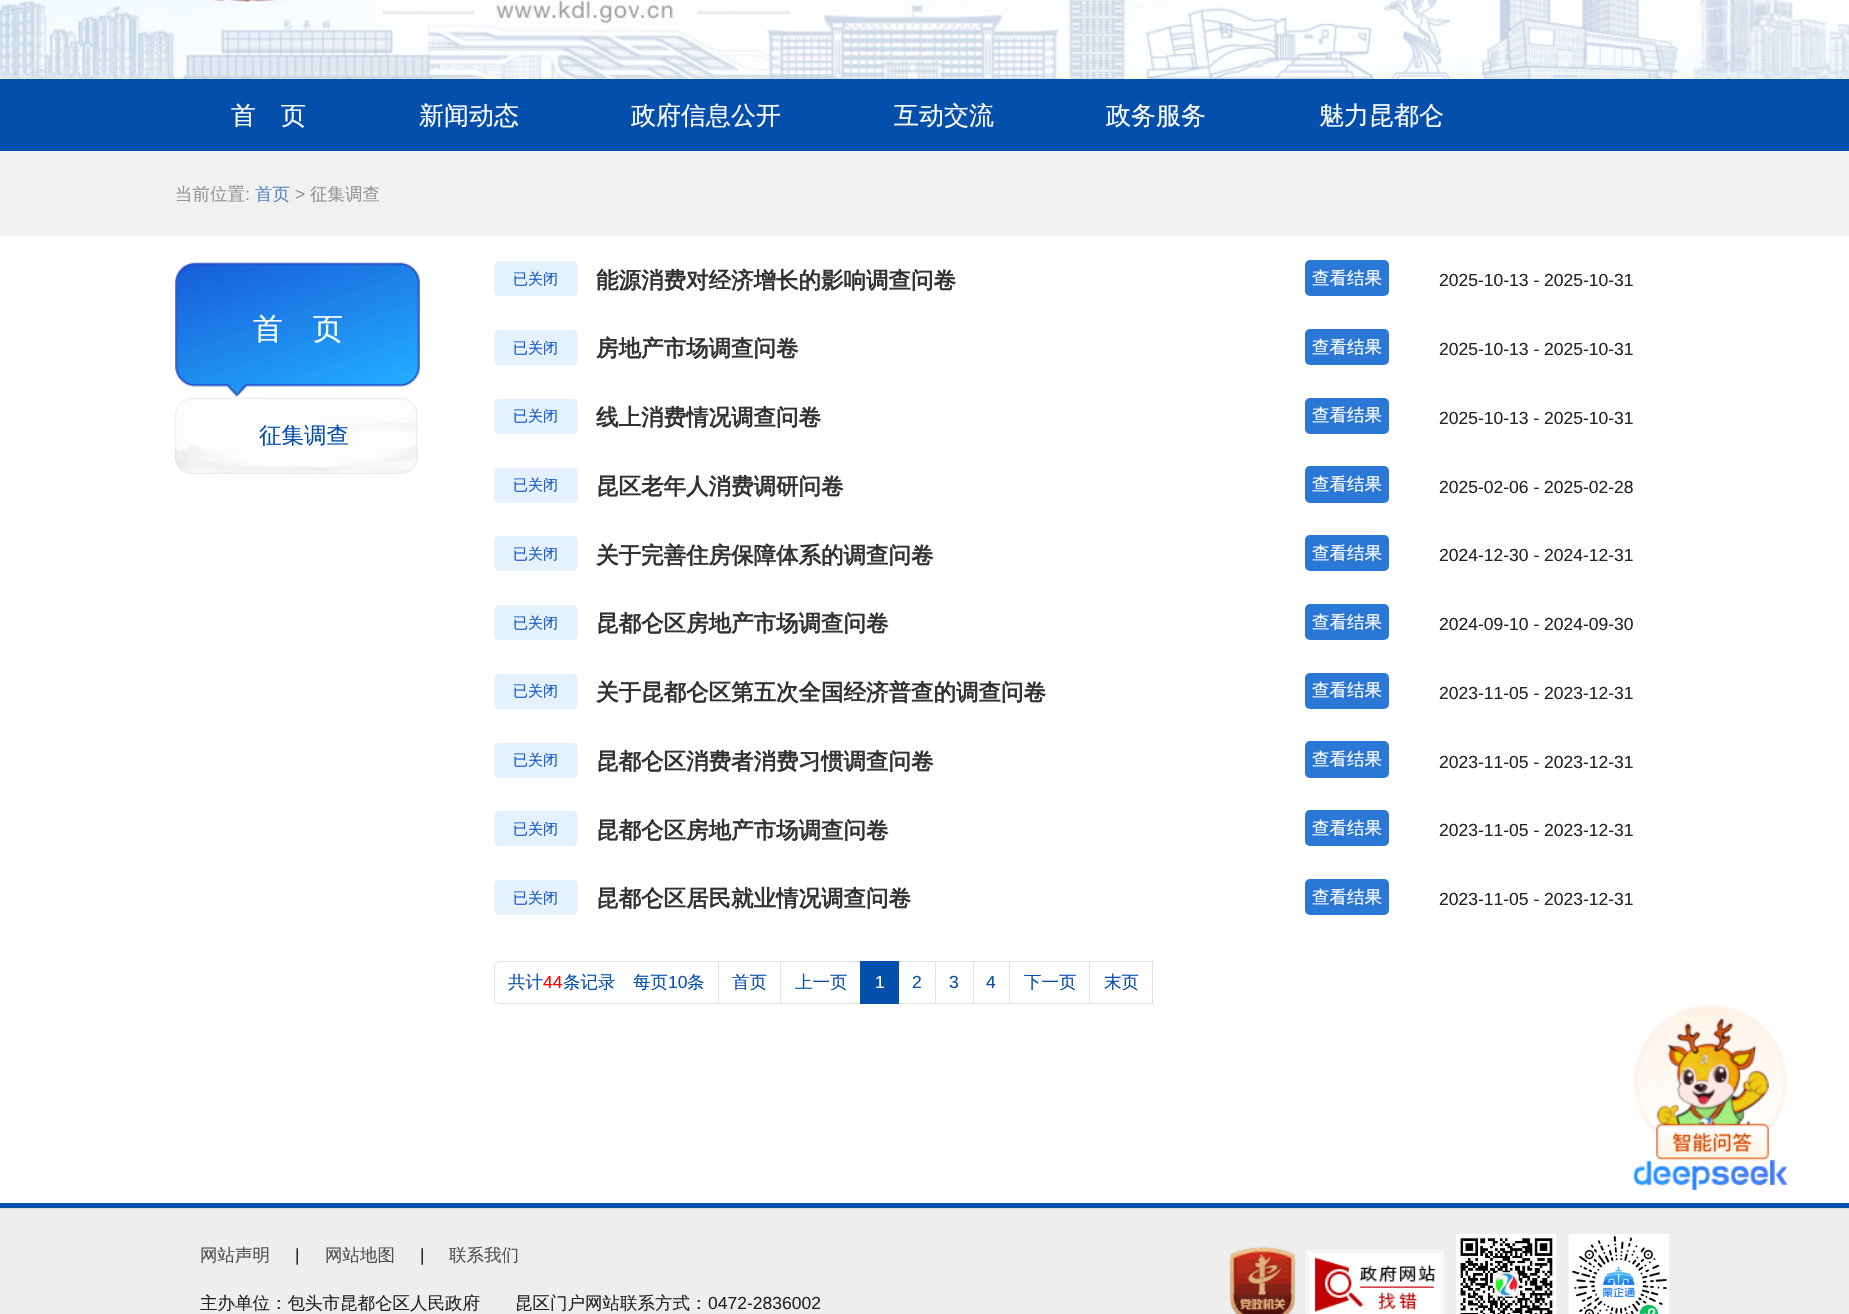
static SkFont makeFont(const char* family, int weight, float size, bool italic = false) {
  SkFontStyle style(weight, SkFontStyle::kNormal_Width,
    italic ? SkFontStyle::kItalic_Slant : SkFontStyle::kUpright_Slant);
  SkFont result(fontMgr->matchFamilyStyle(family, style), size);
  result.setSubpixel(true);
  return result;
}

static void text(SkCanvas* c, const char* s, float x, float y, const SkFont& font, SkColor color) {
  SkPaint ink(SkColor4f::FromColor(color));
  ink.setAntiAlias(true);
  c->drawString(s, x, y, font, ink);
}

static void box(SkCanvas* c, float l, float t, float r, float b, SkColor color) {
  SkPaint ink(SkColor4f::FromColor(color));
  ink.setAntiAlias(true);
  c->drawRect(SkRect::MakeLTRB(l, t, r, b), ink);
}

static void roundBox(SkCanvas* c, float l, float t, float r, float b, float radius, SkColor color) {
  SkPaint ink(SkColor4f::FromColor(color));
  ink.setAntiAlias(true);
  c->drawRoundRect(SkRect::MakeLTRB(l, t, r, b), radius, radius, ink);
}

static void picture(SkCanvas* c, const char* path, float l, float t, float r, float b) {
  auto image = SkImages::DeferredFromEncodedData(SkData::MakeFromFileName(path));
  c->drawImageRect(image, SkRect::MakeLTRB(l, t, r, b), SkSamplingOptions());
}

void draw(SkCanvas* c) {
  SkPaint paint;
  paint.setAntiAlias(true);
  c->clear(0xffffffff);
  picture(c, "img_01.png", 0, 0, 1849, 79);
  picture(c, "img_02.png", 0, 0, 1849, 79);
  picture(c, "img_03.png", 212, 0, 790, 23);
  box(c, 0, 79, 1849, 151, 0xff054fac);
  SkFont face1 = makeFont("WenQuanYi Zen Hei", 500, 25);
  text(c, "首　页", 231, 124, face1, 0xffffffff);
  text(c, "新闻动态", 419, 124, face1, 0xffffffff);
  text(c, "政府信息公开", 631, 124, face1, 0xffffffff);
  text(c, "互动交流", 894, 124, face1, 0xffffffff);
  text(c, "政务服务", 1106, 124, face1, 0xffffffff);
  text(c, "魅力昆都仑", 1319, 124, face1, 0xffffffff);
  box(c, 0, 151, 1849, 236, 0xfff1f1f1);
  SkFont face2 = makeFont("WenQuanYi Zen Hei", 500, 17.5f);
  text(c, "当前位置", 175, 200, face2, 0xff959595);
  SkFont face3 = makeFont("Liberation Sans", 400, 17.5f);
  text(c, ":", 245, 200, face3, 0xff959595);
  text(c, "首页", 255, 200, face2, 0xff5386c6);
  text(c, ">", 295, 200, face3, 0xff959595);
  text(c, "征集调查", 310, 200, face2, 0xff959595);
  picture(c, "img_04.png", 175, 262, 420, 397);
  SkFont face4 = makeFont("WenQuanYi Zen Hei", 500, 30);
  text(c, "首　页", 253, 339, face4, 0xffffffff);
  picture(c, "img_05.png", 175, 397, 418, 474);
  SkFont face5 = makeFont("WenQuanYi Zen Hei", 500, 22.5f);
  text(c, "征集调查", 259, 443, face5, 0xff054fac);
  roundBox(c, 494, 261, 578, 296, 5, 0xffe5f1ff);
  SkFont face6 = makeFont("WenQuanYi Zen Hei", 500, 15);
  text(c, "已关闭", 513, 284, face6, 0xff1257c7);
  SkFont face7 = makeFont("WenQuanYi Zen Hei", 700, 22.5f);
  text(c, "能源消费对经济增长的影响调查问卷", 596, 288, face7, 0xff333333);
  roundBox(c, 1305, 260, 1389, 296, 5, 0xff2b77d6);
  text(c, "查看结果", 1312, 284, face2, 0xffffffff);
  text(c, "2025-10-13 - 2025-10-31", 1439, 286, face3, 0xff212529);
  roundBox(c, 494, 330, 578, 365, 5, 0xffe5f1ff);
  text(c, "已关闭", 513, 353, face6, 0xff1257c7);
  text(c, "房地产市场调查问卷", 596, 356, face7, 0xff333333);
  roundBox(c, 1305, 329, 1389, 365, 5, 0xff2b77d6);
  text(c, "查看结果", 1312, 353, face2, 0xffffffff);
  text(c, "2025-10-13 - 2025-10-31", 1439, 355, face3, 0xff212529);
  roundBox(c, 494, 399, 578, 434, 5, 0xffe5f1ff);
  text(c, "已关闭", 513, 421, face6, 0xff1257c7);
  text(c, "线上消费情况调查问卷", 596, 425, face7, 0xff333333);
  roundBox(c, 1305, 398, 1389, 434, 5, 0xff2b77d6);
  text(c, "查看结果", 1312, 421, face2, 0xffffffff);
  text(c, "2025-10-13 - 2025-10-31", 1439, 424, face3, 0xff212529);
  roundBox(c, 494, 468, 578, 503, 5, 0xffe5f1ff);
  text(c, "已关闭", 513, 490, face6, 0xff1257c7);
  text(c, "昆区老年人消费调研问卷", 596, 494, face7, 0xff333333);
  roundBox(c, 1305, 466, 1389, 503, 5, 0xff2b77d6);
  text(c, "查看结果", 1312, 490, face2, 0xffffffff);
  text(c, "2025-02-06 - 2025-02-28", 1439, 493, face3, 0xff212529);
  roundBox(c, 494, 536, 578, 571, 5, 0xffe5f1ff);
  text(c, "已关闭", 513, 559, face6, 0xff1257c7);
  text(c, "关于完善住房保障体系的调查问卷", 596, 563, face7, 0xff333333);
  roundBox(c, 1305, 535, 1389, 571, 5, 0xff2b77d6);
  text(c, "查看结果", 1312, 559, face2, 0xffffffff);
  text(c, "2024-12-30 - 2024-12-31", 1439, 561, face3, 0xff212529);
  roundBox(c, 494, 605, 578, 640, 5, 0xffe5f1ff);
  text(c, "已关闭", 513, 628, face6, 0xff1257c7);
  text(c, "昆都仑区房地产市场调查问卷", 596, 631, face7, 0xff333333);
  roundBox(c, 1305, 604, 1389, 640, 5, 0xff2b77d6);
  text(c, "查看结果", 1312, 628, face2, 0xffffffff);
  text(c, "2024-09-10 - 2024-09-30", 1439, 630, face3, 0xff212529);
  roundBox(c, 494, 674, 578, 709, 5, 0xffe5f1ff);
  text(c, "已关闭", 513, 696, face6, 0xff1257c7);
  text(c, "关于昆都仑区第五次全国经济普查的调查问卷", 596, 700, face7, 0xff333333);
  roundBox(c, 1305, 673, 1389, 709, 5, 0xff2b77d6);
  text(c, "查看结果", 1312, 696, face2, 0xffffffff);
  text(c, "2023-11-05 - 2023-12-31", 1439, 699, face3, 0xff212529);
  roundBox(c, 494, 743, 578, 778, 5, 0xffe5f1ff);
  text(c, "已关闭", 513, 765, face6, 0xff1257c7);
  text(c, "昆都仑区消费者消费习惯调查问卷", 596, 769, face7, 0xff333333);
  roundBox(c, 1305, 741, 1389, 778, 5, 0xff2b77d6);
  text(c, "查看结果", 1312, 765, face2, 0xffffffff);
  text(c, "2023-11-05 - 2023-12-31", 1439, 768, face3, 0xff212529);
  roundBox(c, 494, 811, 578, 846, 5, 0xffe5f1ff);
  text(c, "已关闭", 513, 834, face6, 0xff1257c7);
  text(c, "昆都仑区房地产市场调查问卷", 596, 838, face7, 0xff333333);
  roundBox(c, 1305, 810, 1389, 846, 5, 0xff2b77d6);
  text(c, "查看结果", 1312, 834, face2, 0xffffffff);
  text(c, "2023-11-05 - 2023-12-31", 1439, 836, face3, 0xff212529);
  roundBox(c, 494, 880, 578, 915, 5, 0xffe5f1ff);
  text(c, "已关闭", 513, 903, face6, 0xff1257c7);
  text(c, "昆都仑区居民就业情况调查问卷", 596, 906, face7, 0xff333333);
  roundBox(c, 1305, 879, 1389, 915, 5, 0xff2b77d6);
  text(c, "查看结果", 1312, 903, face2, 0xffffffff);
  text(c, "2023-11-05 - 2023-12-31", 1439, 905, face3, 0xff212529);
  paint.setStyle(SkPaint::kStroke_Style);
  paint.setStrokeWidth(1);
  paint.setColor(0xffdee2e6);
  c->drawPath(SkPathBuilder().moveTo(499, 961.5f).lineTo(718.5f, 961.5f).lineTo(718.5f, 1003.5f).lineTo(499, 1003.5f).cubicTo(496.5f, 1003.5f, 494.5f, 1001.5f, 494.5f, 999).lineTo(494.5f, 966).cubicTo(494.5f, 963.5f, 496.5f, 961.5f, 499, 961.5f).close().detach(), paint);
  text(c, "共计", 508, 988, face2, 0xff054fac);
  text(c, "44", 543, 988, face3, 0xffff0000);
  text(c, "条记录　每页", 563, 988, face2, 0xff054fac);
  text(c, "10", 668, 988, face3, 0xff054fac);
  text(c, "条", 687, 988, face2, 0xff054fac);
  c->drawRect(SkRect::MakeLTRB(718.5f, 961.5f, 780.5f, 1003.5f), paint);
  text(c, "首页", 732, 988, face2, 0xff054fac);
  c->drawRect(SkRect::MakeLTRB(780.5f, 961.5f, 860.5f, 1003.5f), paint);
  text(c, "上一页", 795, 988, face2, 0xff054fac);
  c->drawRect(SkRect::MakeLTRB(898.5f, 961.5f, 935.5f, 1003.5f), paint);
  box(c, 860, 961, 899, 1004, 0xff054fac);
  text(c, "1", 875, 988, face3, 0xffffffff);
  text(c, "2", 912, 988, face3, 0xff054fac);
  c->drawRect(SkRect::MakeLTRB(935.5f, 961.5f, 973.5f, 1003.5f), paint);
  text(c, "3", 949, 988, face3, 0xff054fac);
  c->drawRect(SkRect::MakeLTRB(973.5f, 961.5f, 1009.5f, 1003.5f), paint);
  text(c, "4", 986, 988, face3, 0xff054fac);
  c->drawRect(SkRect::MakeLTRB(1009.5f, 961.5f, 1089.5f, 1003.5f), paint);
  text(c, "下一页", 1024, 988, face2, 0xff054fac);
  c->drawRect(SkRect::MakeLTRB(1089.5f, 961.5f, 1152.5f, 1003.5f), paint);
  text(c, "末页", 1104, 988, face2, 0xff054fac);
  picture(c, "img_06.png", 1633, 1005, 1788, 1190);
  box(c, 0, 1209, 1849, 1314, 0xffeeeeee);
  box(c, 0, 1203, 1849, 1208, 0xff054fac);
  box(c, 0, 1208, 1849, 1209, 0xffdcdcdc);
  text(c, "网站声明", 200, 1261, face2, 0xff515151);
  text(c, "|", 295, 1261, face3, 0xff212529);
  text(c, "网站地图", 325, 1261, face2, 0xff515151);
  text(c, "|", 420, 1261, face3, 0xff212529);
  text(c, "联系我们", 449, 1261, face2, 0xff515151);
  text(c, "主办单位：包头市昆都仑区人民政府　　昆区门户网站联系方式：", 200, 1309, face2, 0xff212529);
  text(c, "0472-2836002", 708, 1309, face3, 0xff212529);
  picture(c, "img_07.png", 1229, 1246, 1296, 1314);
  picture(c, "img_08.png", 1306, 1250, 1444, 1314);
  picture(c, "img_09.png", 1456, 1234, 1557, 1314);
  picture(c, "img_10.png", 1568, 1234, 1669, 1314);
}
